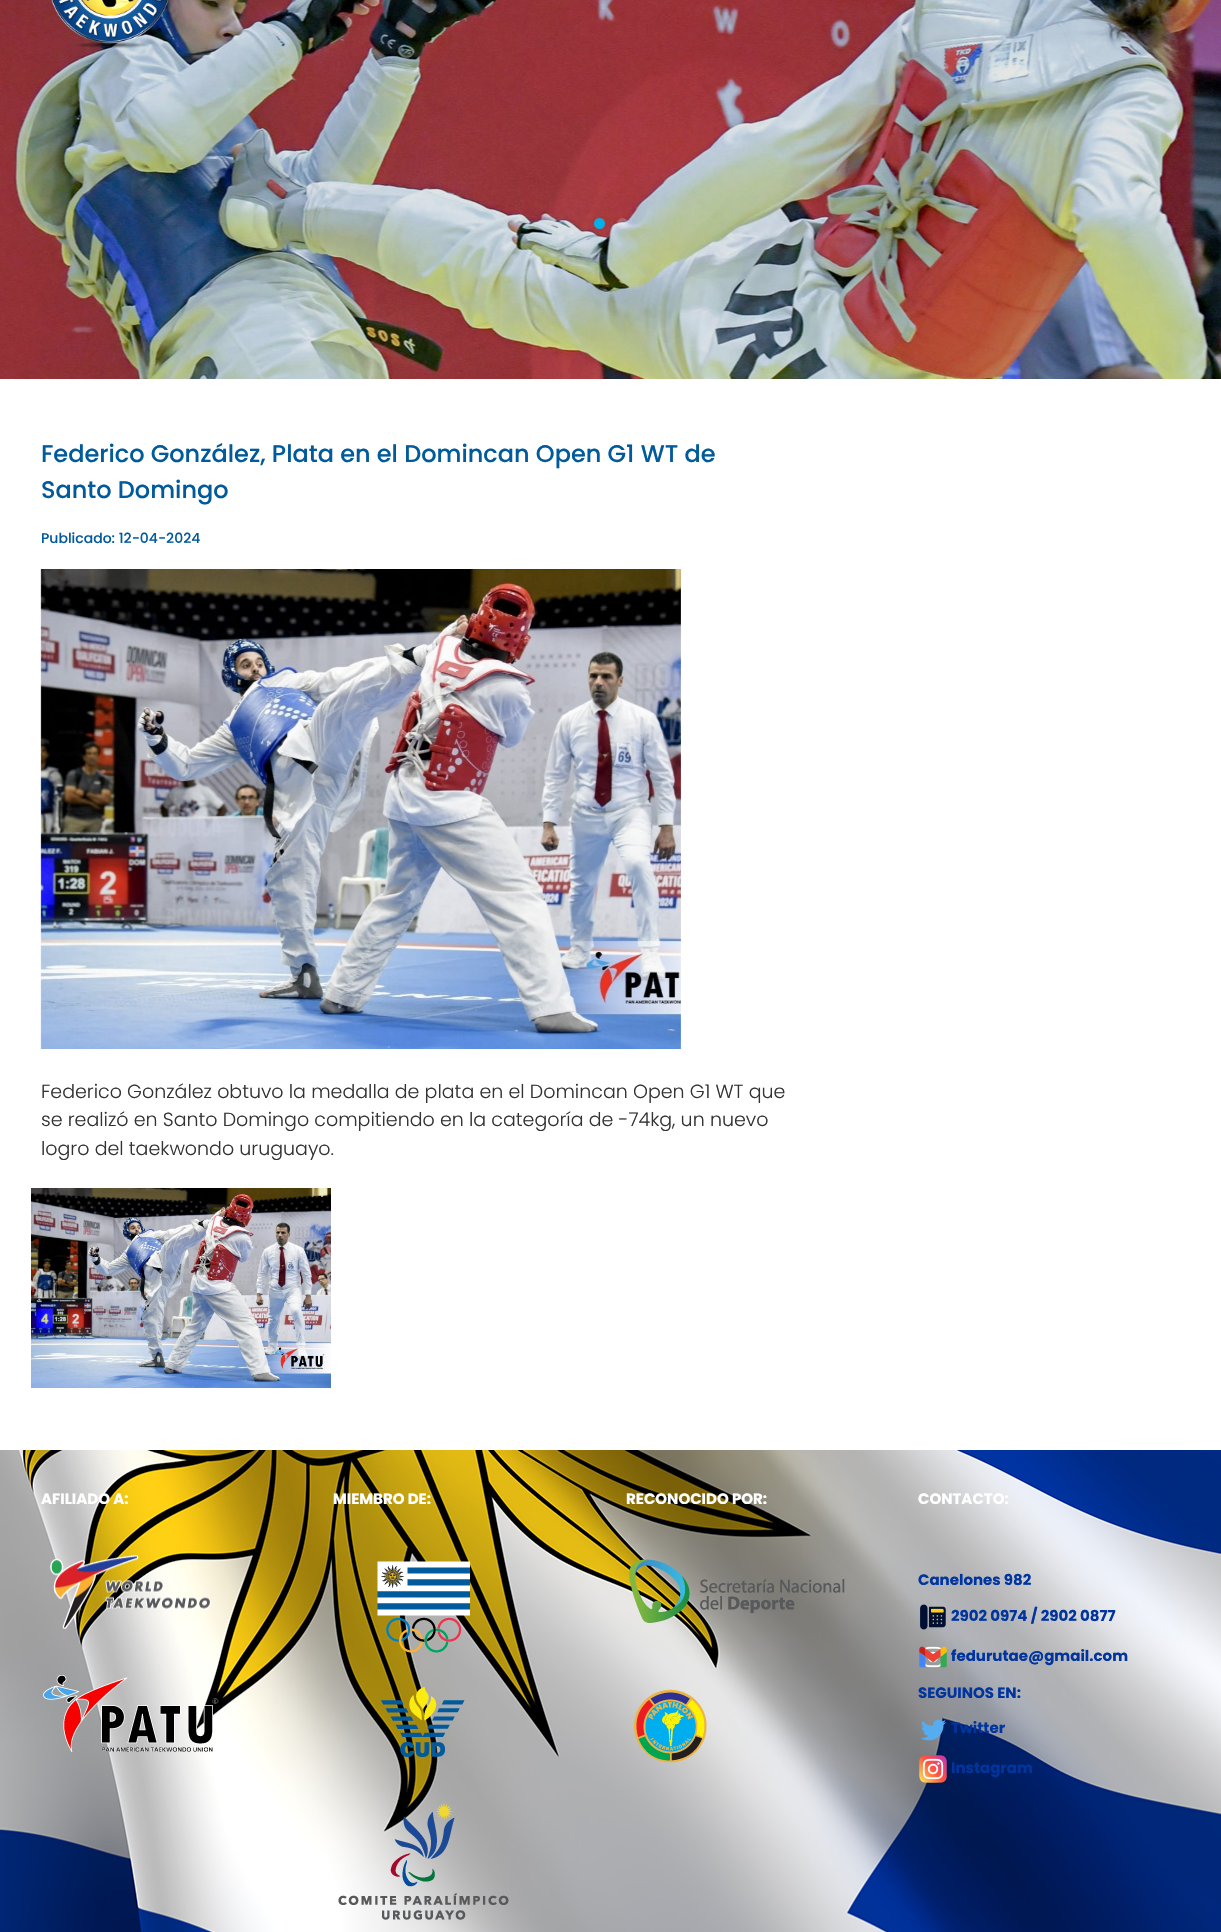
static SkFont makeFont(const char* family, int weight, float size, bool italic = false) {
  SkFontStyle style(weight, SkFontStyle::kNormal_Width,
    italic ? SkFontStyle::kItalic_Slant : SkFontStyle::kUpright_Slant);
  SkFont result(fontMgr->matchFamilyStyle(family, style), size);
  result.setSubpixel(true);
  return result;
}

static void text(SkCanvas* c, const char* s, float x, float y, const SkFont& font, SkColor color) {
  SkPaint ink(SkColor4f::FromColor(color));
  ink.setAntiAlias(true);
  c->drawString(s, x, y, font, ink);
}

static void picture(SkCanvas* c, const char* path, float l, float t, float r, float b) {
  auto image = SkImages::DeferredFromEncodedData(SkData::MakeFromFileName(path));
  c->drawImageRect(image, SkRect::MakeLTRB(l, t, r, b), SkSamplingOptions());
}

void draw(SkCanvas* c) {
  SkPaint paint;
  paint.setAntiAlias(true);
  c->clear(0xffffffff);
  picture(c, "img_01.png", 0, 0, 1221, 379);
  paint.setColor(0xff00b2e9);
  c->drawCircle(599.5f, 223.5f, 5.5f, paint);
  paint.setColor(0x33ffffff);
  c->drawCircle(622.5f, 223.5f, 5.5f, paint);
  picture(c, "img_02.png", 51, 0, 169, 49);
  SkFont face1 = makeFont("Poppins", 500, 24);
  text(c, "Federico González, Plata en el Domincan Open G1 WT de", 41, 462, face1, 0xff005a9c);
  text(c, "Santo Domingo", 41, 498, face1, 0xff005a9c);
  SkFont face2 = makeFont("Poppins", 500, 14);
  text(c, "Publicado: 12-04-2024", 41, 543, face2, 0xff005a9c);
  picture(c, "img_03.png", 40, 569, 681, 1049);
  SkFont face3 = makeFont("Poppins", 300, 19);
  text(c, "Federico González obtuvo la medalla de plata en el Domincan Open G1 WT que", 41, 1098, face3, 0xff333333);
  text(c, "se realizó en Santo Domingo compitiendo en la categoría de -74kg, un nuevo", 41, 1126, face3, 0xff333333);
  text(c, "logro del taekwondo uruguayo.", 41, 1155, face3, 0xff333333);
  picture(c, "img_04.png", 31, 1188, 331, 1388);
  picture(c, "img_05.png", 0, 1450, 1221, 1932);
  SkFont face4 = makeFont("Poppins", 700, 15);
  text(c, "AFILIADO A:", 41, 1504, face4, 0xffffffff);
  picture(c, "img_06.png", 50, 1555, 211, 1629);
  picture(c, "img_07.png", 43, 1675, 219, 1752);
  text(c, "MIEMBRO DE:", 333, 1504, face4, 0xffffffff);
  picture(c, "img_08.png", 377, 1561, 470, 1653);
  picture(c, "img_09.png", 381, 1687, 465, 1757);
  picture(c, "img_10.png", 338, 1803, 509, 1920);
  text(c, "RECONOCIDO POR:", 626, 1504, face4, 0xffffffff);
  picture(c, "img_11.png", 629, 1559, 845, 1623);
  picture(c, "img_12.png", 634, 1689, 707, 1763);
  text(c, "CONTACTO:", 918, 1504, face4, 0xffffffff);
  text(c, "Canelones 982", 918, 1585, face4, 0xff00359f);
  picture(c, "img_13.png", 920, 1604, 946, 1630);
  text(c, "2902 0974 / 2902 0877", 951, 1621, face4, 0xff00359f);
  picture(c, "img_14.png", 919, 1646, 947, 1668);
  text(c, "fedurutae@gmail.com", 951, 1661, face4, 0xff00359f);
  text(c, "SEGUINOS EN:", 918, 1698, face4, 0xff00359f);
  picture(c, "img_15.png", 921, 1719, 946, 1741);
  text(c, "Twitter", 951, 1733, face4, 0xff00359f);
  picture(c, "img_16.png", 919, 1755, 947, 1783);
  text(c, "Instagram", 951, 1773, face4, 0xff00359f);
}
